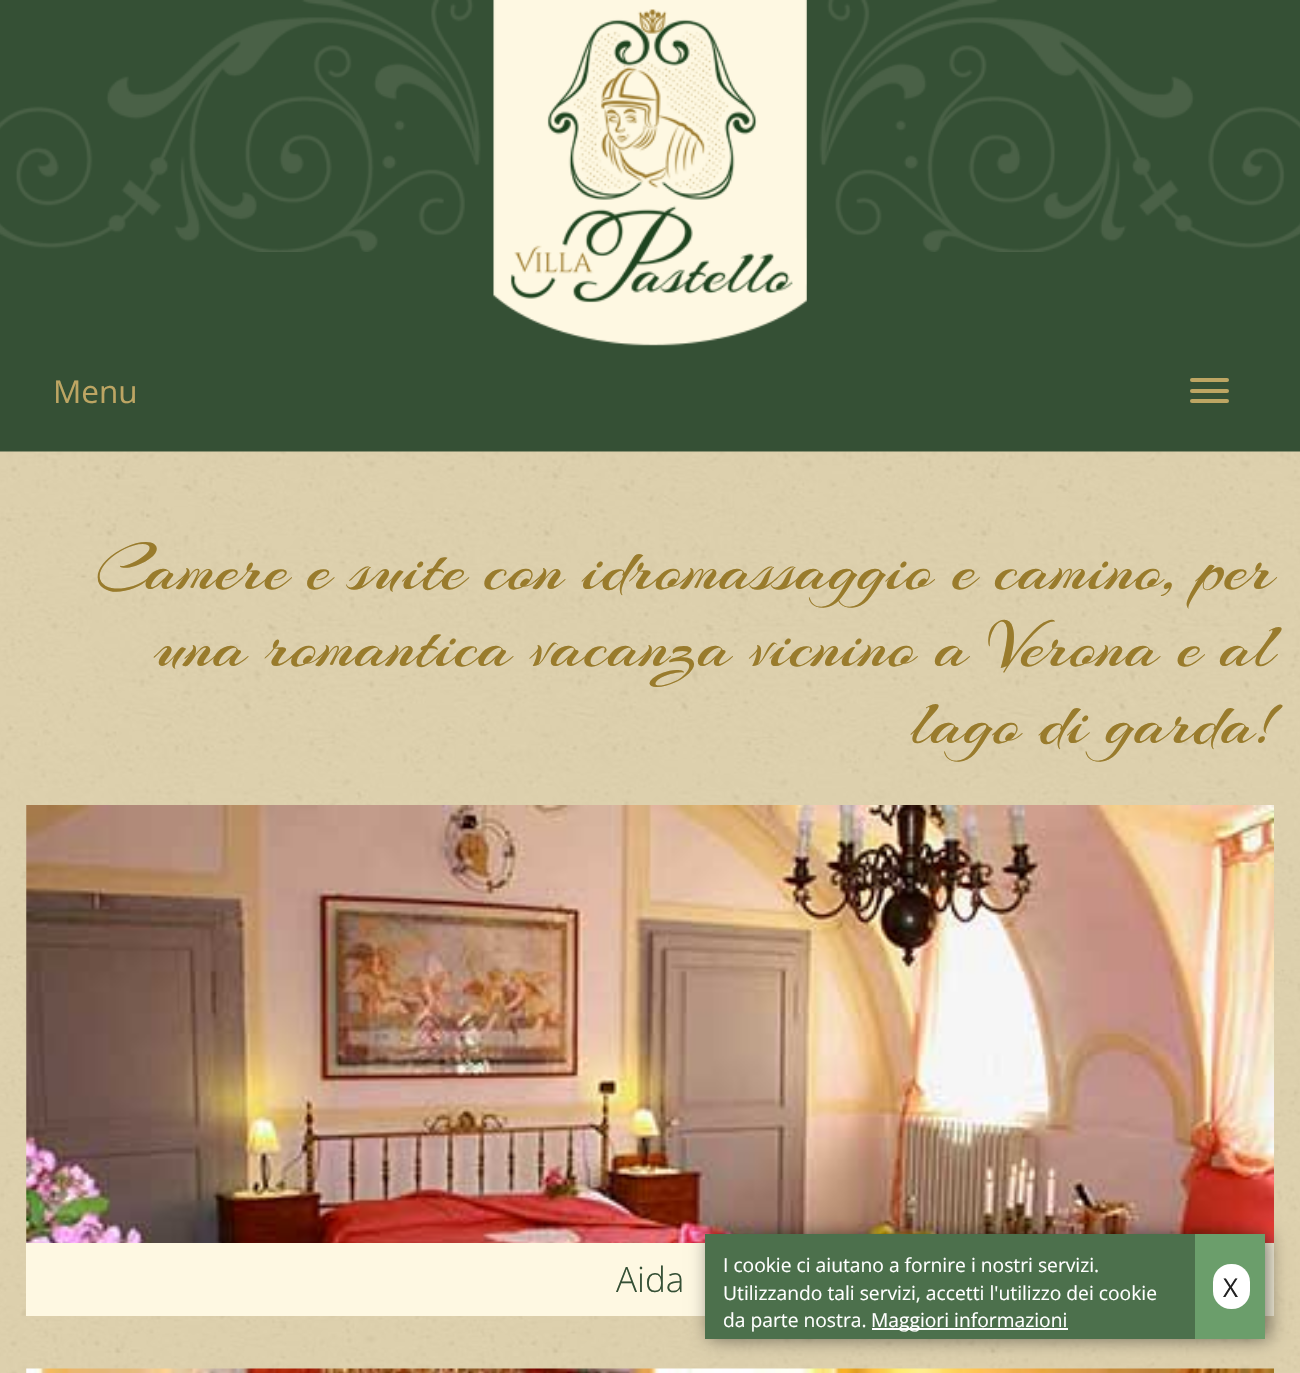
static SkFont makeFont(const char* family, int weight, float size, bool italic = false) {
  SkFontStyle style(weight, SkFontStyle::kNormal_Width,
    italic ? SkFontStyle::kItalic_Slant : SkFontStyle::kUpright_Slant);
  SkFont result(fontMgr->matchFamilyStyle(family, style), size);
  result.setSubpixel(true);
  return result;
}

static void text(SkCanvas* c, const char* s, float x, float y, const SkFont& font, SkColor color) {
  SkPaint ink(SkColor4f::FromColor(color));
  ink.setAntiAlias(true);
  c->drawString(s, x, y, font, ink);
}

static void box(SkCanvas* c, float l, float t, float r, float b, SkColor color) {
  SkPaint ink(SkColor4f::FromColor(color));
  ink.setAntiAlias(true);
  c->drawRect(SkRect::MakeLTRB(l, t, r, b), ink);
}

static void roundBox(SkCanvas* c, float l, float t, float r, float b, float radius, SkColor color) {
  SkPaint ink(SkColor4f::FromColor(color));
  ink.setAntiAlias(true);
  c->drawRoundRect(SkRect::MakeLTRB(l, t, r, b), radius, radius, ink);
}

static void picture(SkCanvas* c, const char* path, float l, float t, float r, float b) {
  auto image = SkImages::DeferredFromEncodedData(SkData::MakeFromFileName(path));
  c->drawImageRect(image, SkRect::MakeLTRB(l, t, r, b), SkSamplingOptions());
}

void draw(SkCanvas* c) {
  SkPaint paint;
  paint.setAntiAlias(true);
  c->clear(0xff355035);
  picture(c, "img_01.png", 0, 0, 1300, 252);
  picture(c, "img_02.png", 493, 0, 807, 346);
  SkFont face1 = makeFont("Open Sans", 400, 31.5f);
  text(c, "Menu", 53, 403, face1, 0xffbda563);
  roundBox(c, 1190, 378, 1229, 382, 2, 0xffbda563);
  roundBox(c, 1190, 389, 1229, 393, 2, 0xffbda563);
  roundBox(c, 1190, 399, 1229, 403, 2, 0xffbda563);
  picture(c, "img_03.png", 0, 451, 1300, 1373);
  SkFont face2 = makeFont("Arizonia", 400, 70);
  text(c, "Camere e suite con idromassaggio e camino, per", 96, 589, face2, 0xff997b2c);
  text(c, "una romantica vacanza vicnino a Verona e al", 154, 666, face2, 0xff997b2c);
  text(c, "lago di garda!", 911, 743, face2, 0xff997b2c);
  picture(c, "img_04.png", 26, 805, 1274, 1243);
  box(c, 26, 1243, 1274, 1316, 0xfffef8e2);
  SkFont face3 = makeFont("Open Sans", 300, 35);
  text(c, "Aida", 616, 1292, face3, 0xff355035);
  picture(c, "img_05.png", 26, 1368, 1274, 1373);
  paint.setColor(0x80000000);
  paint.setMaskFilter(SkMaskFilter::MakeBlur(kNormal_SkBlurStyle, 9));
  c->drawRect(SkRect::MakeLTRB(709, 1234, 1269, 1339), paint);
  paint.setMaskFilter(nullptr);
  box(c, 705, 1234, 1195, 1339, 0xff4c704c);
  SkFont face4 = makeFont("Open Sans", 400, 19.25f);
  text(c, "I cookie ci aiutano a fornire i nostri servizi.", 723, 1272, face4, 0xffffffff);
  text(c, "Utilizzando tali servizi, accetti l'utilizzo dei cookie", 723, 1300, face4, 0xffffffff);
  text(c, "da parte nostra.", 723, 1327, face4, 0xffffffff);
  box(c, 872, 1328, 1068, 1330, 0xffffffff);
  text(c, "Maggiori informazioni", 871, 1327, face4, 0xffffffff);
  box(c, 1195, 1234, 1265, 1339, 0xff6b9e6b);
  roundBox(c, 1213, 1264, 1250, 1309, 18, 0xffffffff);
  SkFont face5 = makeFont("Open Sans", 400, 26);
  text(c, "X", 1223, 1297, face5, 0xff222222);
}
